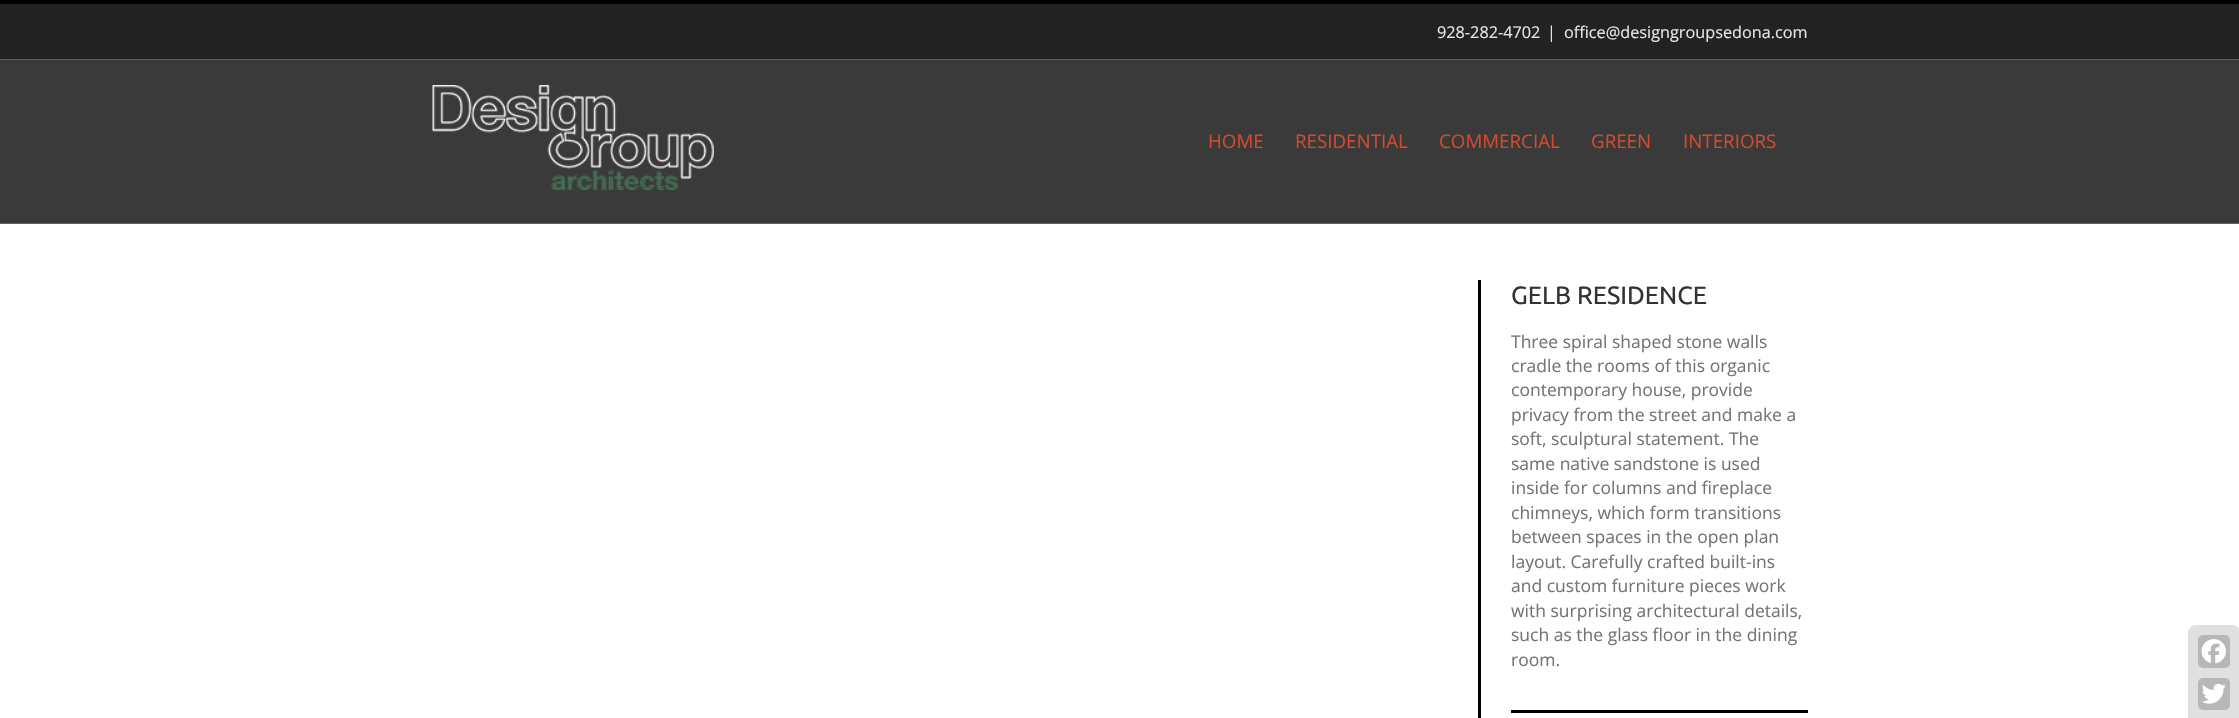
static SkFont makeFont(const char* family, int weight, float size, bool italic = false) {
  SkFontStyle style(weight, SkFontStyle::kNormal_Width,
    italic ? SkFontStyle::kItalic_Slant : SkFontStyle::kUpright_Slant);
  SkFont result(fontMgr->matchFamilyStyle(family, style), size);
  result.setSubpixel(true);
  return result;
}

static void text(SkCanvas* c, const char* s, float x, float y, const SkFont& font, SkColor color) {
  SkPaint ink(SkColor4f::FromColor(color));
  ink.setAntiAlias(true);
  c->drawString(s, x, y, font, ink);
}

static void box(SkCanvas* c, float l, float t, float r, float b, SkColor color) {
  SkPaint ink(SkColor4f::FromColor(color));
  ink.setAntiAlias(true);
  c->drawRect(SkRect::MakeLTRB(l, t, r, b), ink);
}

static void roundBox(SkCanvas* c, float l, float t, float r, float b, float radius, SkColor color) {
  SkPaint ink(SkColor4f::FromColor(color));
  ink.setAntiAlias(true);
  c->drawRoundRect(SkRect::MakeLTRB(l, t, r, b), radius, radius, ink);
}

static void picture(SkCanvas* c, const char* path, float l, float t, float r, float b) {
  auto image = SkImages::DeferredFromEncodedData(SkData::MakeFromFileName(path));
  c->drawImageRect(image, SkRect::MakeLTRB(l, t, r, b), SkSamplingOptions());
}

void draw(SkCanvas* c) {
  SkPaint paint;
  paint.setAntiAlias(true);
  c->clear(0xffffffff);
  box(c, 0, 4, 2239, 59, 0xff222222);
  box(c, 0, 0, 2239, 4, 0xff000000);
  box(c, 0, 59, 2239, 60, 0xff487151);
  SkFont face1 = makeFont("Open Sans", 400, 16.25f);
  text(c, "928-282-4702", 1437, 38, face1, 0xffe5e5e5);
  text(c, "|", 1547, 38, face1, 0xffe5e5e5);
  text(c, "office@designgroupsedona.com", 1564, 38, face1, 0xffe5e5e5);
  box(c, 0, 60, 2239, 223, 0xff3a3a3a);
  box(c, 0, 223, 2239, 224, 0xff487151);
  picture(c, "img_01.png", 432, 85, 714, 190);
  SkFont face2 = makeFont("Open Sans", 400, 18.75f);
  text(c, "HOME", 1208, 148, face2, 0xffd34a2e);
  text(c, "RESIDENTIAL", 1295, 148, face2, 0xffd34a2e);
  text(c, "COMMERCIAL", 1439, 148, face2, 0xffd34a2e);
  text(c, "GREEN", 1591, 148, face2, 0xffd34a2e);
  text(c, "INTERIORS", 1683, 148, face2, 0xffd34a2e);
  box(c, 1478, 280, 1481, 718, 0xff000000);
  SkFont face3 = makeFont("Ubuntu", 400, 25);
  text(c, "GELB RESIDENCE", 1511, 304, face3, 0xff333333);
  SkFont face4 = makeFont("Open Sans", 400, 17.5f);
  text(c, "Three spiral shaped stone walls", 1511, 348, face4, 0xff747474);
  text(c, "cradle the rooms of this organic", 1511, 372, face4, 0xff747474);
  text(c, "contemporary house, provide", 1511, 396, face4, 0xff747474);
  text(c, "privacy from the street and make a", 1511, 421, face4, 0xff747474);
  text(c, "soft, sculptural statement. The", 1511, 445, face4, 0xff747474);
  text(c, "same native sandstone is used", 1511, 470, face4, 0xff747474);
  text(c, "inside for columns and fireplace", 1511, 494, face4, 0xff747474);
  text(c, "chimneys, which form transitions", 1511, 519, face4, 0xff747474);
  text(c, "between spaces in the open plan", 1511, 543, face4, 0xff747474);
  text(c, "layout. Carefully crafted built-ins", 1511, 568, face4, 0xff747474);
  text(c, "and custom furniture pieces work", 1511, 592, face4, 0xff747474);
  text(c, "with surprising architectural details,", 1511, 617, face4, 0xff747474);
  text(c, "such as the glass floor in the dining", 1511, 641, face4, 0xff747474);
  text(c, "room.", 1511, 666, face4, 0xff747474);
  box(c, 1511, 710, 1808, 713, 0xff000000);
  roundBox(c, 2188, 625, 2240, 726, 8, 0xffe0e0e0);
  roundBox(c, 2198, 635, 2230, 668, 5, 0xffb7b7b7);
  picture(c, "img_02.png", 2201, 639, 2226, 664);
  roundBox(c, 2198, 678, 2230, 710, 5, 0xffb7b7b7);
  picture(c, "img_03.png", 2202, 683, 2226, 704);
}
